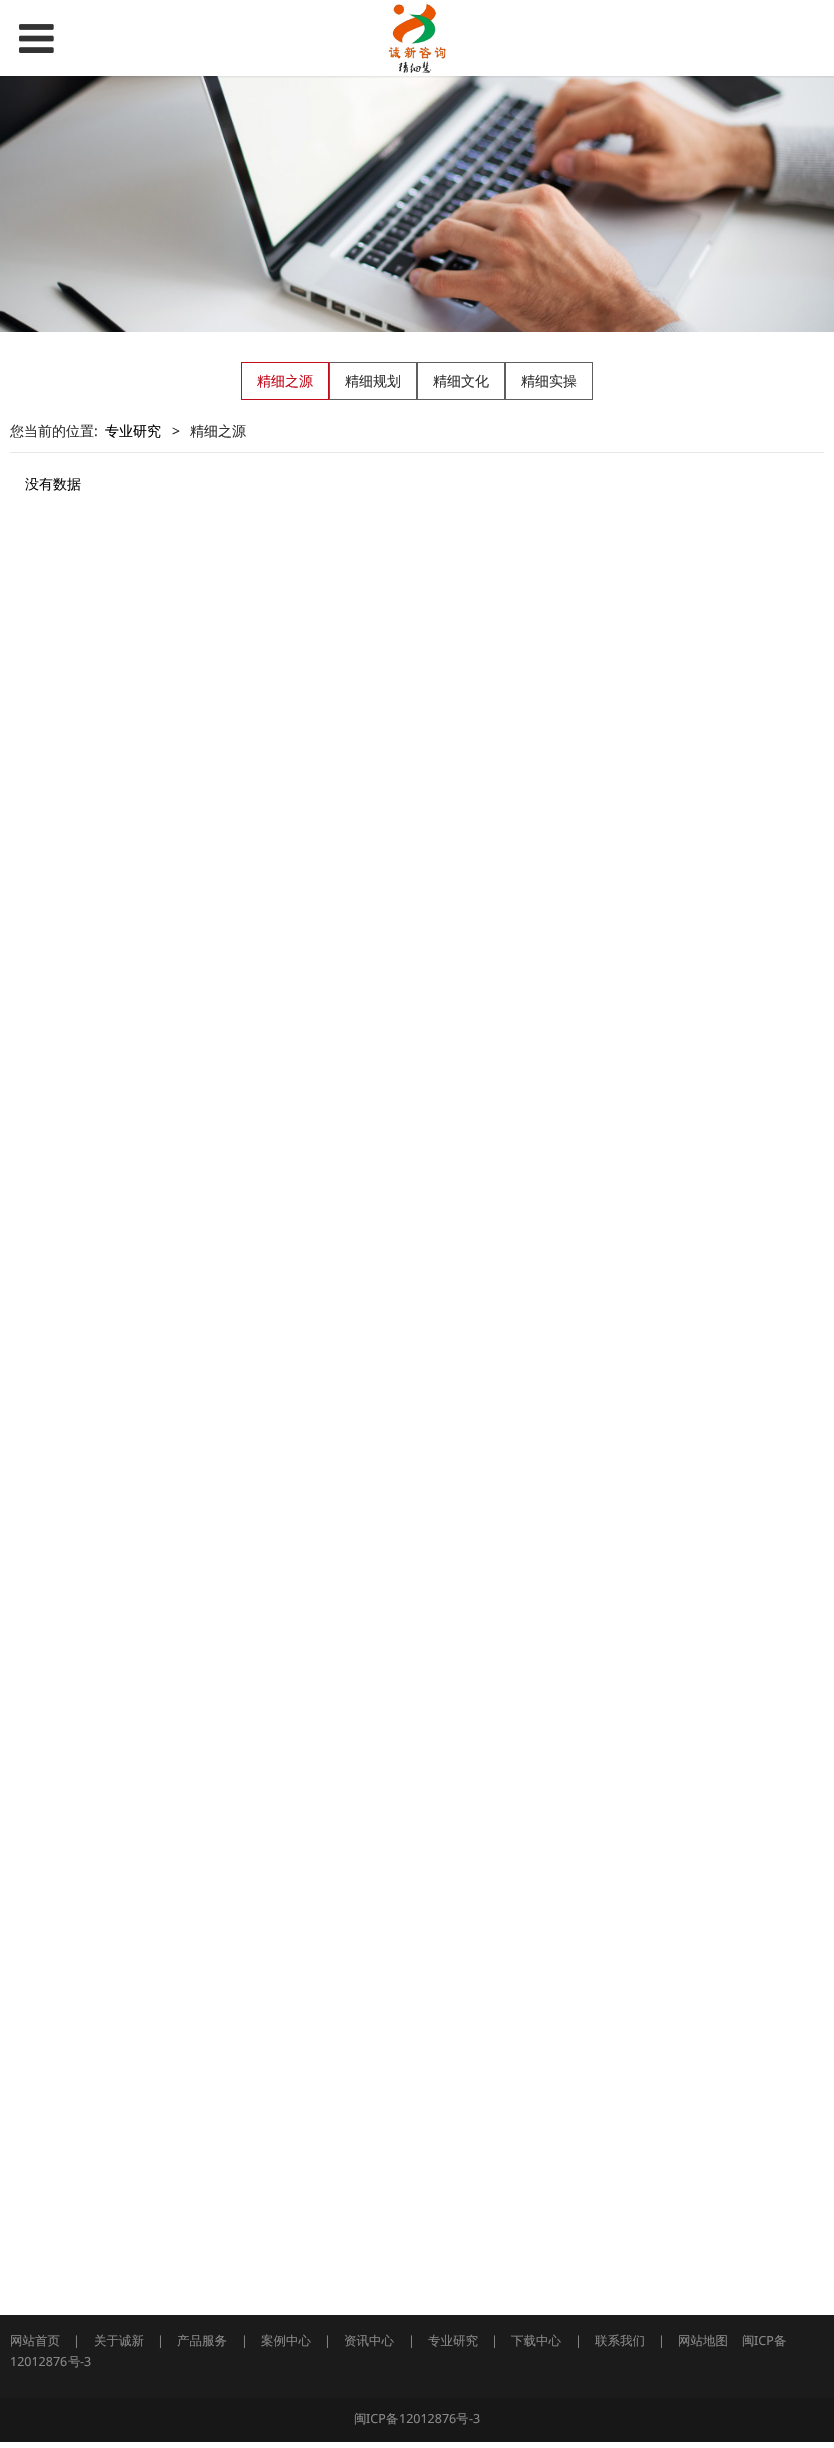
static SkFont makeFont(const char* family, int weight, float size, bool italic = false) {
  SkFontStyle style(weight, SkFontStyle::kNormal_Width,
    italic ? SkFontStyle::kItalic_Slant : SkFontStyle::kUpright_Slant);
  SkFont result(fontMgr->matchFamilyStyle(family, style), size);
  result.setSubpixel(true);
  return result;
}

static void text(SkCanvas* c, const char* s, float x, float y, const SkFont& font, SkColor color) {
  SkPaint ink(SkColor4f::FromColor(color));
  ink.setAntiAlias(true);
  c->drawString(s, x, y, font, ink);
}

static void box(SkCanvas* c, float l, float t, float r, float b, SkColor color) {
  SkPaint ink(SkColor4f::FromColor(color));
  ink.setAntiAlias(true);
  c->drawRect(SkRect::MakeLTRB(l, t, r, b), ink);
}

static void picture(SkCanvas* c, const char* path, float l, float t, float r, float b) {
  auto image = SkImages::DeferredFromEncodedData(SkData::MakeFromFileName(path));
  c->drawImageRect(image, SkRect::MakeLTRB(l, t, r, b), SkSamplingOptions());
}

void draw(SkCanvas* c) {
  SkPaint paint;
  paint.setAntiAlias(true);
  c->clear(0xffffffff);
  picture(c, "img_03.png", 0, 76, 834, 332);
  c->save();
  c->clipRect(SkRect::MakeLTRB(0, 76, 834, 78));
  paint.setColor(0x1a000000);
  paint.setMaskFilter(SkMaskFilter::MakeBlur(kNormal_SkBlurStyle, 1));
  c->drawRect(SkRect::MakeLTRB(0, 1, 834, 77), paint);
  paint.setMaskFilter(nullptr);
  c->restore();
  picture(c, "img_01.png", 19, 24, 54, 53);
  picture(c, "img_02.png", 388, 3, 446, 73);
  paint.setStyle(SkPaint::kStroke_Style);
  paint.setStrokeWidth(1);
  paint.setColor(0xffc10c1d);
  c->drawRect(SkRect::MakeLTRB(241.5f, 362.5f, 328.5f, 399.5f), paint);
  SkFont face1 = makeFont("WenQuanYi Zen Hei", 500, 14);
  text(c, "精细之源", 257, 386, face1, 0xffc10c1d);
  paint.setColor(0xff5f5d5d);
  c->drawRect(SkRect::MakeLTRB(329.5f, 362.5f, 416.5f, 399.5f), paint);
  text(c, "精细规划", 345, 386, face1, 0xff333333);
  c->drawRect(SkRect::MakeLTRB(417.5f, 362.5f, 504.5f, 399.5f), paint);
  text(c, "精细文化", 433, 386, face1, 0xff333333);
  c->drawRect(SkRect::MakeLTRB(505.5f, 362.5f, 592.5f, 399.5f), paint);
  text(c, "精细实操", 521, 386, face1, 0xff333333);
  box(c, 10, 452, 824, 453, 0xffe7e7e7);
  text(c, "您当前的位置", 10, 436, face1, 0xff333333);
  SkFont face2 = makeFont("Noto Sans", 400, 14);
  text(c, ":", 94, 436, face2, 0xff333333);
  text(c, "专业研究", 105, 436, face1, 0xff000000);
  text(c, ">", 172, 436, face2, 0xff333333);
  text(c, "精细之源", 190, 436, face1, 0xff333333);
  text(c, "没有数据", 25, 489, face1, 0xff0d0d0d);
  box(c, 0, 2315, 834, 2398, 0xff1b1b1b);
  SkFont face3 = makeFont("WenQuanYi Zen Hei", 500, 12.5f);
  text(c, "网站首页", 10, 2345, face3, 0xff888888);
  SkFont face4 = makeFont("Noto Sans", 400, 12.5f);
  text(c, "|", 73, 2345, face4, 0xff888888);
  text(c, "关于诚新", 94, 2345, face3, 0xff888888);
  text(c, "|", 157, 2345, face4, 0xff888888);
  text(c, "产品服务", 177, 2345, face3, 0xff888888);
  text(c, "|", 241, 2345, face4, 0xff888888);
  text(c, "案例中心", 261, 2345, face3, 0xff888888);
  text(c, "|", 324, 2345, face4, 0xff888888);
  text(c, "资讯中心", 344, 2345, face3, 0xff888888);
  text(c, "|", 408, 2345, face4, 0xff888888);
  text(c, "专业研究", 428, 2345, face3, 0xff888888);
  text(c, "|", 491, 2345, face4, 0xff888888);
  text(c, "下载中心", 511, 2345, face3, 0xff888888);
  text(c, "|", 575, 2345, face4, 0xff888888);
  text(c, "联系我们", 595, 2345, face3, 0xff888888);
  text(c, "|", 658, 2345, face4, 0xff888888);
  text(c, "网站地图", 678, 2345, face3, 0xff888888);
  text(c, "闽", 742, 2345, face3, 0xff888888);
  text(c, "ICP", 754, 2345, face4, 0xff888888);
  text(c, "备", 774, 2345, face3, 0xff888888);
  text(c, "12012876", 10, 2366, face4, 0xff888888);
  text(c, "号", 68, 2366, face3, 0xff888888);
  text(c, "-3", 80, 2366, face4, 0xff888888);
  box(c, 0, 2398, 834, 2442, 0xff171717);
  text(c, "闽", 354, 2423, face3, 0xff888888);
  text(c, "ICP", 366, 2423, face4, 0xff888888);
  text(c, "备", 386, 2423, face3, 0xff888888);
  text(c, "12012876", 399, 2423, face4, 0xff888888);
  text(c, "号", 456, 2423, face3, 0xff888888);
  text(c, "-3", 469, 2423, face4, 0xff888888);
}
